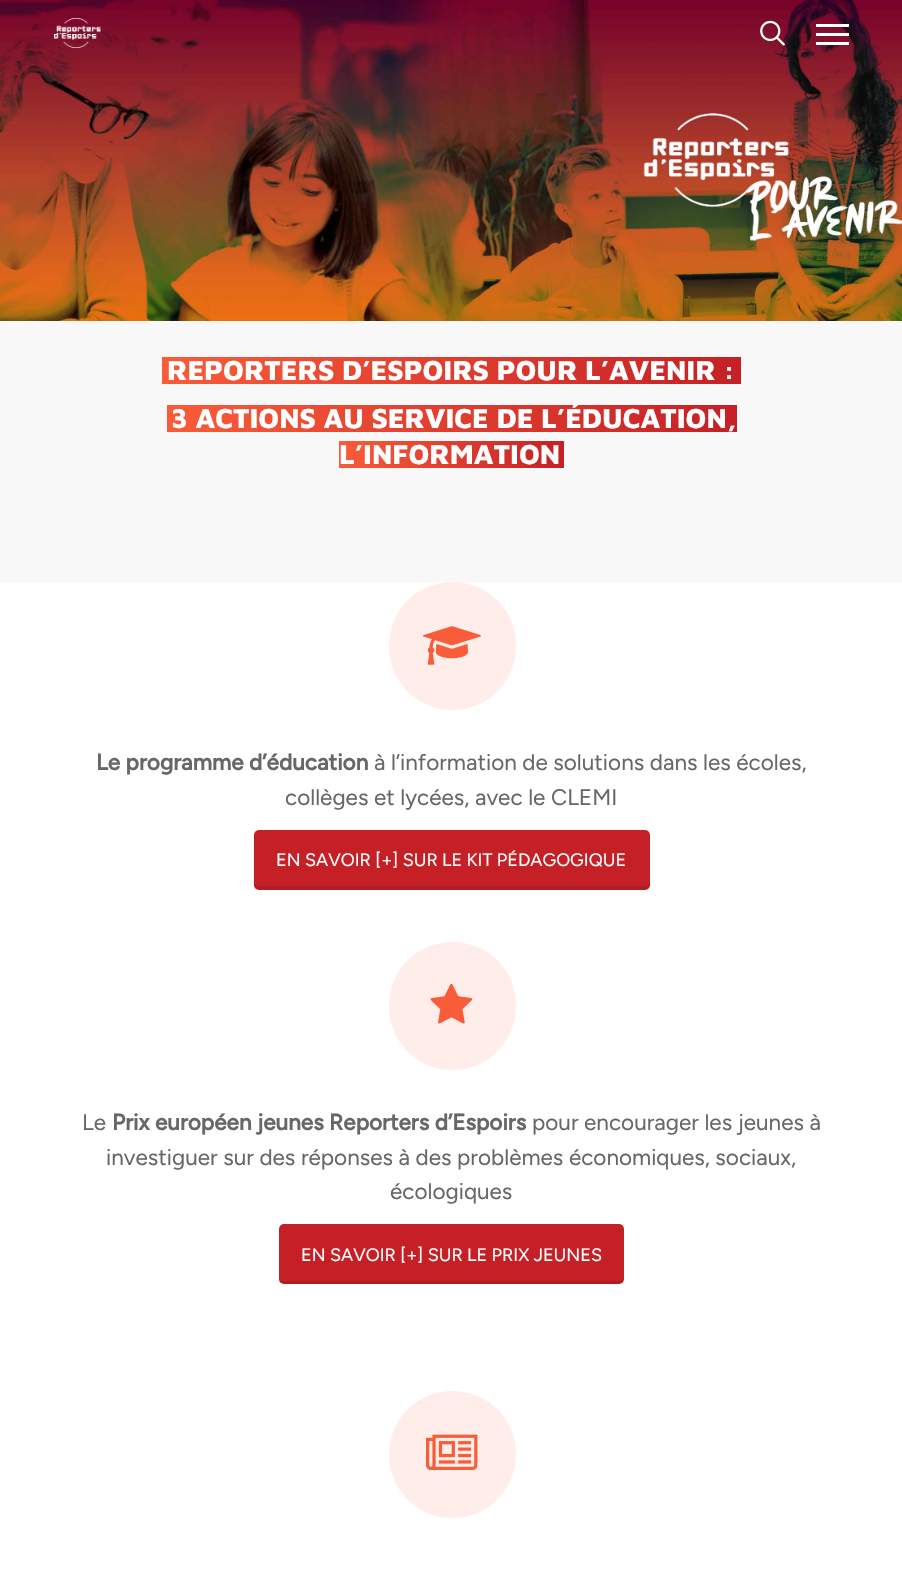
static SkFont makeFont(const char* family, int weight, float size, bool italic = false) {
  SkFontStyle style(weight, SkFontStyle::kNormal_Width,
    italic ? SkFontStyle::kItalic_Slant : SkFontStyle::kUpright_Slant);
  SkFont result(fontMgr->matchFamilyStyle(family, style), size);
  result.setSubpixel(true);
  return result;
}

static void text(SkCanvas* c, const char* s, float x, float y, const SkFont& font, SkColor color) {
  SkPaint ink(SkColor4f::FromColor(color));
  ink.setAntiAlias(true);
  c->drawString(s, x, y, font, ink);
}

static void box(SkCanvas* c, float l, float t, float r, float b, SkColor color) {
  SkPaint ink(SkColor4f::FromColor(color));
  ink.setAntiAlias(true);
  c->drawRect(SkRect::MakeLTRB(l, t, r, b), ink);
}

static void roundBox(SkCanvas* c, float l, float t, float r, float b, float radius, SkColor color) {
  SkPaint ink(SkColor4f::FromColor(color));
  ink.setAntiAlias(true);
  c->drawRoundRect(SkRect::MakeLTRB(l, t, r, b), radius, radius, ink);
}

static void picture(SkCanvas* c, const char* path, float l, float t, float r, float b) {
  auto image = SkImages::DeferredFromEncodedData(SkData::MakeFromFileName(path));
  c->drawImageRect(image, SkRect::MakeLTRB(l, t, r, b), SkSamplingOptions());
}

void draw(SkCanvas* c) {
  SkPaint paint;
  paint.setAntiAlias(true);
  c->clear(0xffffffff);
  picture(c, "img_03.png", 0, 0, 902, 321);
  picture(c, "img_01.png", 54, 18, 101, 48);
  picture(c, "img_02.png", 760, 20, 785, 46);
  box(c, 816, 24, 849, 27, 0xffffffff);
  box(c, 816, 42, 849, 45, 0xffffffff);
  box(c, 816, 33, 849, 36, 0xffffffff);
  box(c, 0, 321, 902, 582, 0xfff8f8f8);
  {
    const SkColor colors[] = {0xfff95c38, 0xffc52026};
    const float stops[] = {0, 1};
    const SkPoint ends[] = {{162, 370}, {741, 370}};
    paint.setShader(SkGradientShader::MakeLinear(ends, colors, stops, 2, SkTileMode::kClamp));
    paint.setAlpha(255);
  }
  c->drawRect(SkRect::MakeLTRB(162, 357, 741, 384), paint);
  SkFont face1 = makeFont("Maven Pro", 800, 28.1f);
  text(c, "REPORTERS D’ESPOIRS POUR L’AVENIR :", 167, 380, face1, 0xffffffff);
  {
    const SkColor colors[] = {0xfff95c38, 0xffc52026};
    const float stops[] = {0, 1};
    const SkPoint ends[] = {{167, 418}, {737, 418}};
    paint.setShader(SkGradientShader::MakeLinear(ends, colors, stops, 2, SkTileMode::kClamp));
    paint.setAlpha(255);
  }
  c->drawRect(SkRect::MakeLTRB(167, 405, 737, 432), paint);
  text(c, "3 ACTIONS AU SERVICE DE L’ÉDUCATION,", 171, 428, face1, 0xffffffff);
  {
    const SkColor colors[] = {0xfff95c38, 0xffc52026};
    const float stops[] = {0, 1};
    const SkPoint ends[] = {{339, 454}, {564, 454}};
    paint.setShader(SkGradientShader::MakeLinear(ends, colors, stops, 2, SkTileMode::kClamp));
    paint.setAlpha(255);
  }
  c->drawRect(SkRect::MakeLTRB(339, 441, 564, 468), paint);
  text(c, "L’INFORMATION", 339, 464, face1, 0xffffffff);
  roundBox(c, 389, 582, 516, 710, 63.5f, 0xfffeede9);
  picture(c, "img_04.png", 423, 626, 481, 665);
  SkFont face2 = makeFont("Figtree", 700, 22.5f);
  text(c, "Le programme d’éducation", 96, 770, face2, 0xff676767);
  SkFont face3 = makeFont("Figtree", 400, 22.5f);
  text(c, "à l’information de solutions dans les écoles,", 374, 770, face3, 0xff676767);
  text(c, "collèges et lycées, avec le CLEMI", 285, 805, face3, 0xff676767);
  roundBox(c, 254, 830, 650, 890, 5, 0xffc52026);
  paint.setShader(nullptr);
  paint.setColor(0x1a000000);
  c->drawPath(SkPathBuilder().moveTo(254, 882).cubicTo(254, 886, 254, 890, 259, 890).lineTo(645, 890).cubicTo(650, 890, 650, 886, 650, 882).cubicTo(650, 884, 647, 886, 645, 886).lineTo(258, 886).cubicTo(256, 886, 254, 884, 254, 882).close().detach(), paint);
  SkFont face4 = makeFont("Figtree", 400, 18);
  text(c, "EN SAVOIR [+] SUR LE KIT PÉDAGOGIQUE", 276, 866, face4, 0xffffffff);
  roundBox(c, 389, 942, 516, 1070, 63.5f, 0xfffeede9);
  picture(c, "img_05.png", 430, 983, 473, 1024);
  text(c, "Le", 82, 1130, face3, 0xff676767);
  text(c, "Prix européen jeunes Reporters d’Espoirs", 112, 1130, face2, 0xff676767);
  text(c, "pour encourager les jeunes à", 532, 1130, face3, 0xff676767);
  text(c, "investiguer sur des réponses à des problèmes économiques, sociaux,", 106, 1165, face3, 0xff676767);
  text(c, "écologiques", 390, 1199, face3, 0xff676767);
  roundBox(c, 279, 1224, 624, 1284, 5, 0xffc52026);
  c->drawPath(SkPathBuilder().moveTo(279, 1276).lineTo(279, 1279).cubicTo(279, 1282, 281, 1284, 284, 1284).lineTo(619, 1284).cubicTo(622, 1284, 624, 1282, 624, 1279).lineTo(624, 1276).cubicTo(624, 1279, 622, 1281, 620, 1281).lineTo(284, 1281).cubicTo(281, 1281, 279, 1279, 279, 1276).close().detach(), paint);
  text(c, "EN SAVOIR [+] SUR LE PRIX JEUNES", 301, 1261, face4, 0xffffffff);
  paint.setColor(0xfffeede9);
  c->drawCircle(452.5f, 1454.5f, 63.5f, paint);
  picture(c, "img_06.png", 426, 1434, 478, 1470);
}
